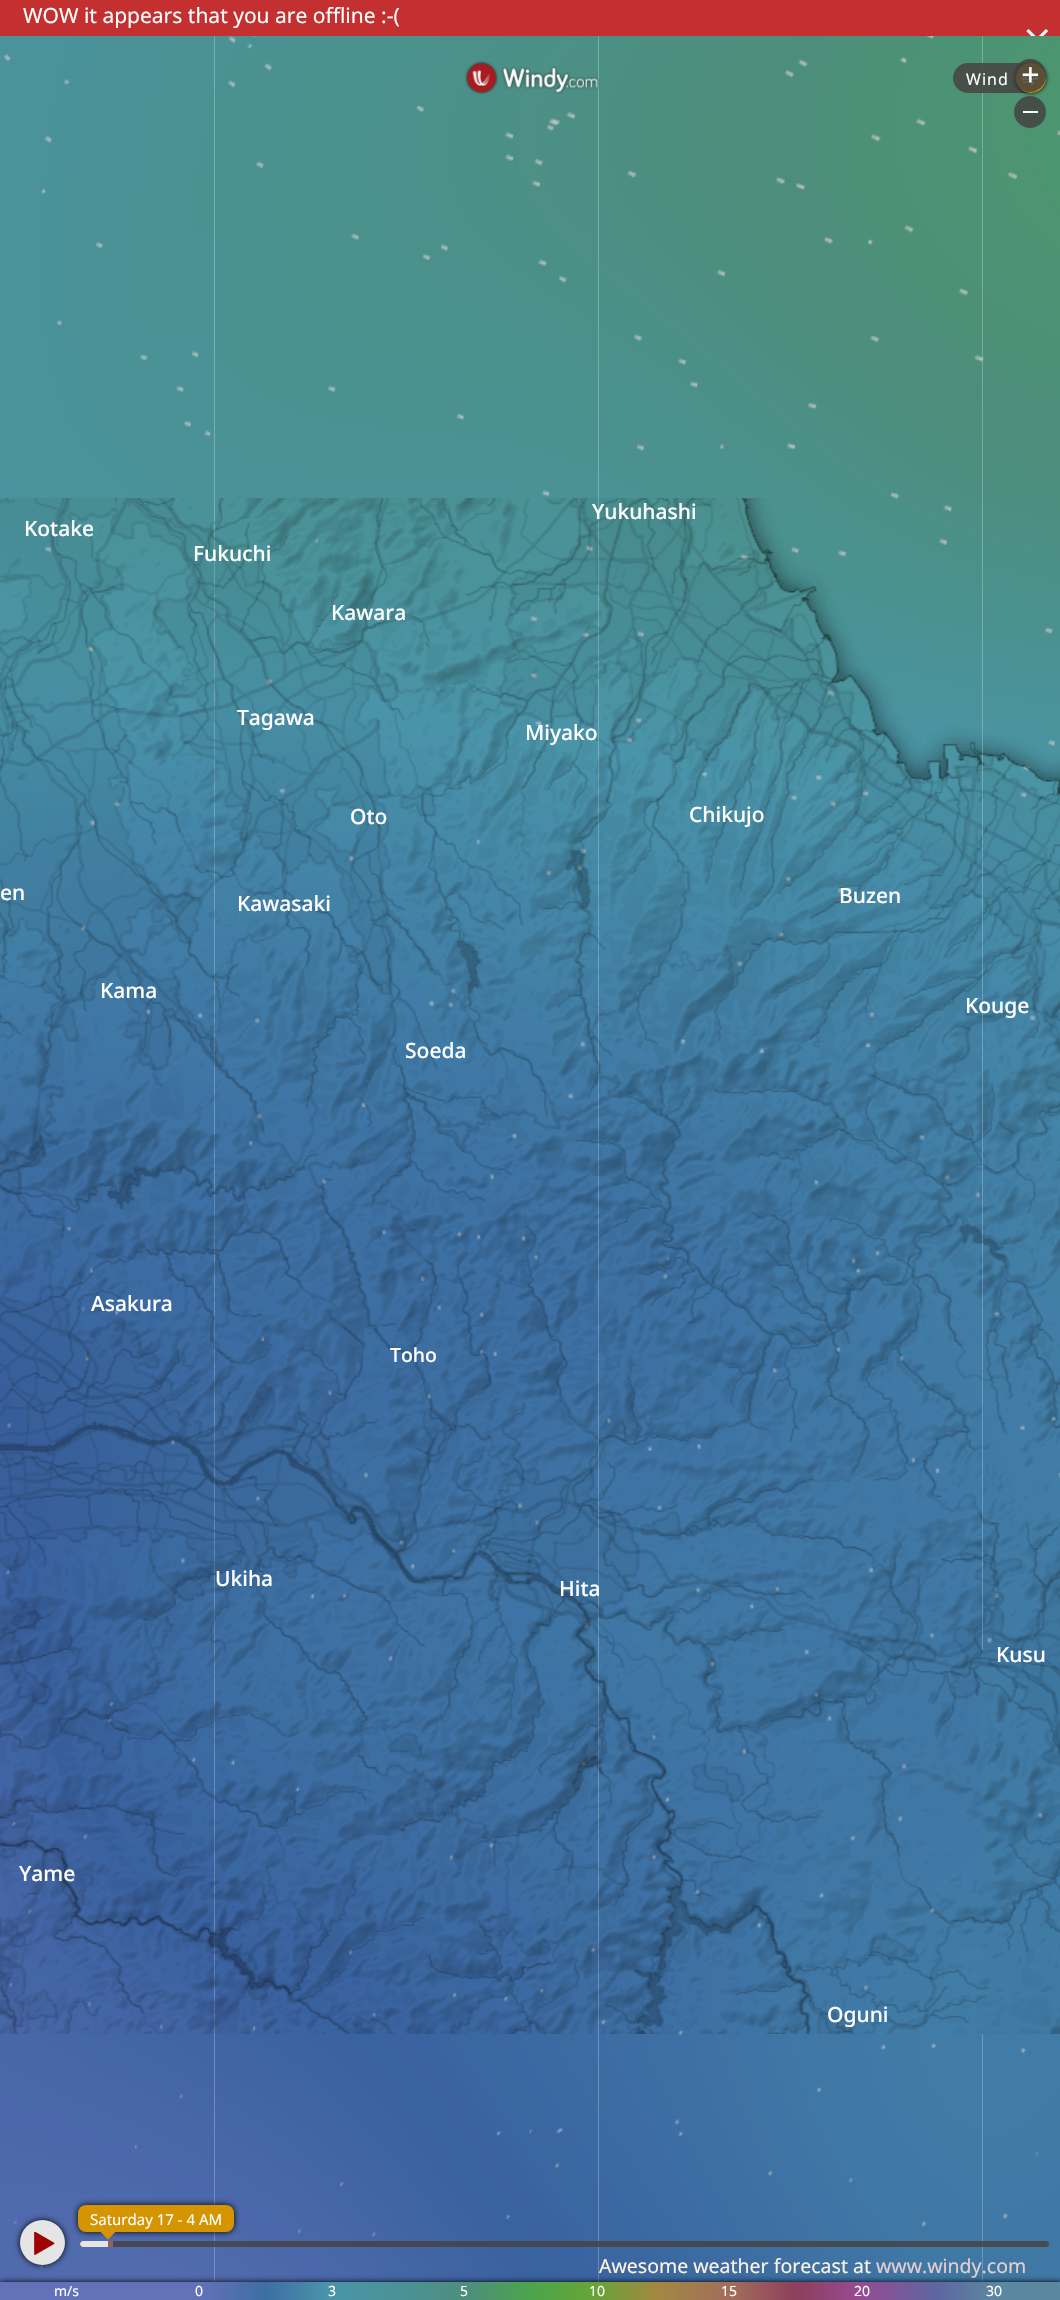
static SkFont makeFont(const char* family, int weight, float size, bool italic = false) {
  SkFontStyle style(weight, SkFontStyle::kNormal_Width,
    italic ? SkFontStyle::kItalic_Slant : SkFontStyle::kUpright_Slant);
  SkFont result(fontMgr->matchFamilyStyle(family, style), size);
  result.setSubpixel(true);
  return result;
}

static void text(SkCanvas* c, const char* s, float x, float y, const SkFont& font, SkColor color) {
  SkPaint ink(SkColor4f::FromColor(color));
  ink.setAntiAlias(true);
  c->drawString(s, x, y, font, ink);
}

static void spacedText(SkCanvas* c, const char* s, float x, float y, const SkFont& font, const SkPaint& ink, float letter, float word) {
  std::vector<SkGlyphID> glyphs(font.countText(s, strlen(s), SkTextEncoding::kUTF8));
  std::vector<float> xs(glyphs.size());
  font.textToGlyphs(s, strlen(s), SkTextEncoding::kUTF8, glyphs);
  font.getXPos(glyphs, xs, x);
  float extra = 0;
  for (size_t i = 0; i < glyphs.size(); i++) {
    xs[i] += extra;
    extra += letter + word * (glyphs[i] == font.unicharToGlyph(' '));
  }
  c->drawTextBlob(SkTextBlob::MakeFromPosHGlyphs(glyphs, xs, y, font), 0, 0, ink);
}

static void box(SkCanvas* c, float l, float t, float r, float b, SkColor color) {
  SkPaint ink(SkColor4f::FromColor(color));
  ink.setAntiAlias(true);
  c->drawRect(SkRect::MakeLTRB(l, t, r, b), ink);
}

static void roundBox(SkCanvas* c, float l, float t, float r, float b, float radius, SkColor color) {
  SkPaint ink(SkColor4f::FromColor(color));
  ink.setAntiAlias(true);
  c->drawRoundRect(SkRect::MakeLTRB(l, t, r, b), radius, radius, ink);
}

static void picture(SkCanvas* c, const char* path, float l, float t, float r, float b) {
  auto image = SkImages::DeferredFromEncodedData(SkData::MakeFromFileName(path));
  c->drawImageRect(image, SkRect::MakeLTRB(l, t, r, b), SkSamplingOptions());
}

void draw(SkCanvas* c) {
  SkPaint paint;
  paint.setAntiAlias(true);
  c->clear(0xffffffff);
  box(c, 0, 0, 1060, 36, 0xffc42f2f);
  SkFont face1 = makeFont("Noto Sans", 400, 21);
  text(c, "WOW it appears that you are offline :-(", 23, 23, face1, 0xffffffff);
  picture(c, "img_01.png", 1026, 29, 1049, 36);
  picture(c, "img_07.png", 214, 36, 599, 114);
  picture(c, "img_06.png", 0, 36, 215, 114);
  picture(c, "img_08.png", 598, 36, 983, 114);
  picture(c, "img_09.png", 982, 36, 1060, 114);
  picture(c, "img_11.png", 214, 114, 599, 498);
  picture(c, "img_10.png", 0, 114, 215, 498);
  picture(c, "img_12.png", 598, 114, 983, 498);
  picture(c, "img_13.png", 982, 114, 1060, 498);
  picture(c, "img_15.png", 214, 498, 599, 882);
  picture(c, "img_14.png", 0, 498, 215, 882);
  picture(c, "img_16.png", 598, 498, 983, 882);
  picture(c, "img_17.png", 982, 498, 1060, 882);
  picture(c, "img_19.png", 214, 882, 599, 1266);
  picture(c, "img_18.png", 0, 882, 215, 1266);
  picture(c, "img_20.png", 598, 882, 983, 1266);
  picture(c, "img_21.png", 982, 882, 1060, 1266);
  picture(c, "img_23.png", 214, 1266, 599, 1650);
  picture(c, "img_22.png", 0, 1266, 215, 1650);
  picture(c, "img_24.png", 598, 1266, 983, 1650);
  picture(c, "img_25.png", 982, 1266, 1060, 1650);
  picture(c, "img_27.png", 214, 1650, 599, 2034);
  picture(c, "img_26.png", 0, 1650, 215, 2034);
  picture(c, "img_28.png", 598, 1650, 982, 2034);
  box(c, 982, 1650, 1060, 2034, 0xff407ba6);
  picture(c, "img_30.png", 214, 2034, 599, 2282);
  picture(c, "img_29.png", 0, 2034, 215, 2282);
  picture(c, "img_31.png", 598, 2034, 983, 2282);
  picture(c, "img_32.png", 982, 2034, 1060, 2282);
  picture(c, "img_33.png", 3, 36, 1060, 2282);
  picture(c, "img_02.png", 465, 61, 499, 95);
  picture(c, "img_03.png", 501, 66, 600, 94);
  roundBox(c, 953, 63, 1046, 93, 15, 0xd6444141);
  SkFont face2 = makeFont("Noto Sans", 400, 16);
  paint.setColor(0xffffffff);
  spacedText(c, "Wind", 966, 85, face2, paint, 1, 0);
  paint.setColor(0xff000000);
  paint.setMaskFilter(SkMaskFilter::MakeBlur(kNormal_SkBlurStyle, 2));
  c->drawRoundRect(SkRect::MakeLTRB(1016, 63, 1046, 93), 15, 15, paint);
  paint.setMaskFilter(nullptr);
  paint.setColor(0xffd49500);
  c->drawCircle(1031, 78, 15, paint);
  picture(c, "img_04.png", 1021, 73, 1038, 85);
  roundBox(c, 1014, 59, 1046, 92, 16, 0xd6444141);
  picture(c, "img_05.png", 1022, 67, 1039, 83);
  paint.setColor(0xd6444141);
  c->drawCircle(1030, 112, 16, paint);
  box(c, 1023, 111, 1038, 113, 0xffffffff);
  picture(c, "img_35.png", 214, 498, 599, 882);
  picture(c, "img_34.png", 0, 498, 215, 882);
  picture(c, "img_36.png", 598, 498, 983, 882);
  picture(c, "img_37.png", 983, 735, 1060, 882);
  picture(c, "img_39.png", 214, 882, 599, 1266);
  picture(c, "img_38.png", 0, 882, 215, 1266);
  picture(c, "img_40.png", 598, 882, 983, 1266);
  picture(c, "img_41.png", 983, 882, 1060, 1266);
  picture(c, "img_43.png", 214, 1266, 599, 1650);
  picture(c, "img_42.png", 0, 1266, 215, 1650);
  picture(c, "img_44.png", 598, 1266, 983, 1650);
  picture(c, "img_45.png", 983, 1266, 1060, 1650);
  picture(c, "img_47.png", 214, 1650, 599, 2034);
  picture(c, "img_46.png", 0, 1650, 215, 2034);
  picture(c, "img_48.png", 598, 1650, 983, 2034);
  picture(c, "img_49.png", 983, 1650, 1060, 2034);
  SkFont face3 = makeFont("Noto Sans", 500, 21);
  text(c, "Kotake", 24, 536, face3, 0xffffffff);
  text(c, "Yukuhashi", 592, 519, face3, 0xffffffff);
  text(c, "Chikujo", 689, 822, face3, 0xffffffff);
  text(c, "Fukuchi", 193, 561, face3, 0xffffffff);
  text(c, "Kawara", 331, 620, face3, 0xffffffff);
  text(c, "Tagawa", 237, 725, face3, 0xffffffff);
  text(c, "Miyako", 525, 740, face3, 0xffffffff);
  text(c, "Oto", 350, 824, face3, 0xffffffff);
  text(c, "en", 0, 900, face3, 0xffffffff);
  text(c, "Kama", 100, 998, face3, 0xffffffff);
  text(c, "Kawasaki", 237, 911, face3, 0xffffffff);
  text(c, "Soeda", 405, 1058, face3, 0xffffffff);
  text(c, "Buzen", 839, 903, face3, 0xffffffff);
  text(c, "Kouge", 965, 1013, face3, 0xffffffff);
  text(c, "Asakura", 91, 1311, face3, 0xffffffff);
  SkFont face4 = makeFont("Noto Sans", 500, 19.5f);
  text(c, "Toho", 390, 1362, face4, 0xffffffff);
  text(c, "Ukiha", 215, 1586, face3, 0xffffffff);
  text(c, "Hita", 559, 1596, face3, 0xffffffff);
  text(c, "Kusu", 996, 1662, face3, 0xffffffff);
  text(c, "Yame", 19, 1881, face3, 0xffffffff);
  text(c, "Oguni", 827, 2022, face3, 0xffffffff);
  paint.setColor(0xff000000);
  paint.setMaskFilter(SkMaskFilter::MakeBlur(kNormal_SkBlurStyle, 3));
  c->drawRoundRect(SkRect::MakeLTRB(20, 2220, 65, 2265), 22.5f, 22.5f, paint);
  paint.setMaskFilter(nullptr);
  paint.setColor(0xffe5e5e5);
  c->drawCircle(42.5f, 2242.5f, 22.5f, paint);
  picture(c, "img_50.png", 34, 2231, 55, 2255);
  paint.setColor(0xff000000);
  paint.setMaskFilter(SkMaskFilter::MakeBlur(kNormal_SkBlurStyle, 3));
  c->drawRoundRect(SkRect::MakeLTRB(78, 2205, 234, 2232), 8, 8, paint);
  paint.setMaskFilter(nullptr);
  roundBox(c, 78, 2205, 234, 2232, 8, 0xffd49500);
  SkFont face5 = makeFont("Noto Sans", 400, 15);
  text(c, "Saturday 17 - 4 AM", 90, 2225, face5, 0xffffffff);
  paint.setColor(0xffd49500);
  c->drawPath(SkPathBuilder().moveTo(100.5f, 2232).lineTo(115.5f, 2232).lineTo(108, 2239.5f).close().detach(), paint);
  roundBox(c, 80, 2241, 1049, 2247, 3, 0xd6444141);
  paint.setColor(0xffe5e5e5);
  c->drawPath(SkPathBuilder().moveTo(83, 2241).lineTo(108, 2241).lineTo(108, 2247).lineTo(83, 2247).cubicTo(81.5f, 2247, 80, 2245.5f, 80, 2244).cubicTo(80, 2242.5f, 81.5f, 2241, 83, 2241).close().detach(), paint);
  box(c, 108, 2241, 113, 2247, 0xff946051);
  paint.setColor(0xff000000);
  paint.setMaskFilter(SkMaskFilter::MakeBlur(kNormal_SkBlurStyle, 3));
  c->drawRect(SkRect::MakeLTRB(0, 2282, 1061, 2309), paint);
  paint.setMaskFilter(nullptr);
  SkFont face6 = makeFont("Noto Sans", 400, 19.5f);
  text(c, "Awesome weather forecast at", 599, 2273, face6, 0xfffff3e1);
  text(c, "www.windy.com", 876, 2273, face6, 0xffe6cece);
  {
    const SkColor colors[] = {0xff6271b8, 0xff6271b8, 0xff3d6ea3, 0xff4a94aa, 0xff4a9294, 0xff4d8e7c, 0xff4ca44c, 0xff67a436, 0xffa28740, 0xffa26d5c, 0xff8d3f5c, 0xff974b91, 0xff5f64a0, 0xff5b88a1, 0xff5b88a1};
    const float stops[] = {0, 0.19f, 0.25f, 0.31f, 0.38f, 0.44f, 0.5f, 0.56f, 0.62f, 0.69f, 0.75f, 0.81f, 0.88f, 0.94f, 1};
    const SkPoint ends[] = {{0, 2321}, {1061, 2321}};
    paint.setShader(SkGradientShader::MakeLinear(ends, colors, stops, 15, SkTileMode::kClamp));
    paint.setAlpha(255);
  }
  c->drawRect(SkRect::MakeLTRB(0, 2282, 1060, 2300), paint);
  SkFont face7 = makeFont("Noto Sans", 400, 14);
  text(c, "m/s", 54, 2296, face7, 0xffffffff);
  text(c, "0", 195, 2296, face7, 0xffffffff);
  text(c, "3", 328, 2296, face7, 0xffffffff);
  text(c, "5", 460, 2296, face7, 0xffffffff);
  text(c, "10", 589, 2296, face7, 0xffffffff);
  text(c, "15", 721, 2296, face7, 0xffffffff);
  text(c, "20", 854, 2296, face7, 0xffffffff);
  text(c, "30", 986, 2296, face7, 0xffffffff);
}
